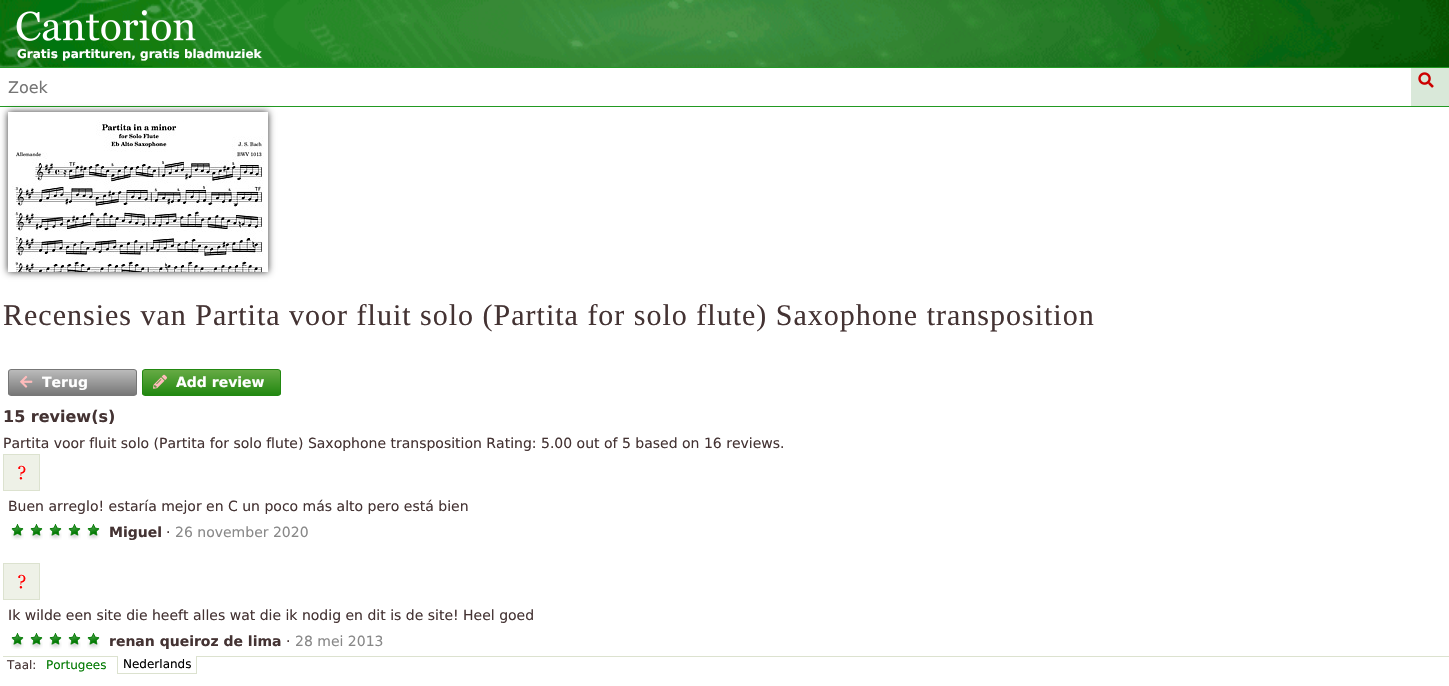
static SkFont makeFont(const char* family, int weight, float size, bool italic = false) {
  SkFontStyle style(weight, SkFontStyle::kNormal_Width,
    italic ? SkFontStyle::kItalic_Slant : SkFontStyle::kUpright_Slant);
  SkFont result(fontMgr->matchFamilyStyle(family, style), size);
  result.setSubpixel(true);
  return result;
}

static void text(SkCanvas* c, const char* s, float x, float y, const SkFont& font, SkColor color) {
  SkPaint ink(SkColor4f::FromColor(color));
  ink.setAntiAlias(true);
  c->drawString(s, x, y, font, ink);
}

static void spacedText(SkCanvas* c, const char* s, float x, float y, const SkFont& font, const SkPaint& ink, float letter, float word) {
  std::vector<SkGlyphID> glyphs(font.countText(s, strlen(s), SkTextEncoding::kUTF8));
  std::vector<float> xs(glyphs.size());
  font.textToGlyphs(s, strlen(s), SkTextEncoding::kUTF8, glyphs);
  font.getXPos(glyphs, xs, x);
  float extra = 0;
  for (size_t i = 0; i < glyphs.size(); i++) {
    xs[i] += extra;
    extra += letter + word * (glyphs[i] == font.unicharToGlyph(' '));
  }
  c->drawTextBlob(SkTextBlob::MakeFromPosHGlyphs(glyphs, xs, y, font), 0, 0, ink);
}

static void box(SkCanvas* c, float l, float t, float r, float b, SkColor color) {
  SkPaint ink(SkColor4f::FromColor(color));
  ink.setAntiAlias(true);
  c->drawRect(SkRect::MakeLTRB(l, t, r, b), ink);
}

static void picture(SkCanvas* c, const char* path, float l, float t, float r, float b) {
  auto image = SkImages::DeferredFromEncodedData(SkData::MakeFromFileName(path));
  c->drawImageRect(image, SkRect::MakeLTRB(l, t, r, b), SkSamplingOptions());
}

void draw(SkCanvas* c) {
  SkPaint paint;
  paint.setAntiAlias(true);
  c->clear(0xffffffff);
  picture(c, "img_01.png", 0, 0, 1449, 67);
  picture(c, "img_02.png", 16, 10, 196, 41);
  SkFont face1 = makeFont("DejaVu Sans", 700, 12);
  text(c, "Gratis partituren, gratis bladmuziek", 17, 58, face1, 0xffffffff);
  box(c, 0, 67, 1449, 68, 0xff229922);
  box(c, 0, 106, 1449, 107, 0xff229922);
  SkFont face2 = makeFont("DejaVu Sans", 400, 16);
  text(c, "Zoek", 8, 93, face2, 0xff757575);
  box(c, 1411, 68, 1449, 106, 0xffd9e8d9);
  picture(c, "img_03.png", 1418, 72, 1434, 88);
  c->save();
  c->clipPath(SkPathBuilder(SkPathFillType::kEvenOdd).moveTo(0, 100).lineTo(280, 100).lineTo(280, 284).lineTo(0, 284).close().moveTo(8, 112).lineTo(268, 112).lineTo(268, 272).lineTo(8, 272).close().detach(), true);
  paint.setColor(0xcc000000);
  paint.setMaskFilter(SkMaskFilter::MakeBlur(kNormal_SkBlurStyle, 3.5f));
  c->drawRect(SkRect::MakeLTRB(8, 112, 268, 272), paint);
  paint.setMaskFilter(nullptr);
  c->restore();
  picture(c, "img_04.png", 12, 120, 264, 272);
  SkFont face3 = makeFont("Liberation Serif", 400, 30);
  paint.setColor(0xff443333);
  spacedText(c, "Recensies van Partita voor fluit solo (Partita for solo flute) Saxophone transposition", 3, 325, face3, paint, 1, 0);
  c->save();
  c->clipPath(SkPathBuilder().moveTo(11, 369).lineTo(134, 369).cubicTo(135.5f, 369, 137, 370.5f, 137, 372).lineTo(137, 393).cubicTo(137, 394.5f, 135.5f, 396, 134, 396).lineTo(11, 396).cubicTo(9.5f, 396, 8, 394.5f, 8, 393).lineTo(8, 372).cubicTo(8, 370.5f, 9.5f, 369, 11, 369).close().detach(), true);
  {
    const SkColor colors[] = {0xffbbbbbb, 0xff777777};
    const float stops[] = {0, 1};
    const SkPoint ends[] = {{73, 370}, {73, 395}};
    paint.setShader(SkGradientShader::MakeLinear(ends, colors, stops, 2, SkTileMode::kClamp));
    paint.setAlpha(255);
  }
  c->drawRect(SkRect::MakeLTRB(8, 370, 137, 395), paint);
  c->restore();
  paint.setStyle(SkPaint::kStroke_Style);
  paint.setStrokeWidth(1);
  paint.setShader(nullptr);
  paint.setColor(0xff777777);
  c->drawRoundRect(SkRect::MakeLTRB(8.5f, 369.5f, 136.5f, 395.5f), 2.5f, 2.5f, paint);
  picture(c, "img_05.png", 20, 375, 33, 388);
  SkFont face4 = makeFont("DejaVu Sans", 700, 14);
  text(c, "Terug", 42, 387, face4, 0xffffffff);
  c->save();
  c->clipPath(SkPathBuilder().moveTo(145, 369).lineTo(278, 369).cubicTo(279.5f, 369, 281, 370.5f, 281, 372).lineTo(281, 393).cubicTo(281, 394.5f, 279.5f, 396, 278, 396).lineTo(145, 396).cubicTo(143.5f, 396, 142, 394.5f, 142, 393).lineTo(142, 372).cubicTo(142, 370.5f, 143.5f, 369, 145, 369).close().detach(), true);
  paint.setStyle(SkPaint::kFill_Style);
  {
    const SkColor colors[] = {0xff66aa44, 0xff228811};
    const float stops[] = {0, 1};
    const SkPoint ends[] = {{212, 370}, {212, 395}};
    paint.setShader(SkGradientShader::MakeLinear(ends, colors, stops, 2, SkTileMode::kClamp));
    paint.setAlpha(255);
  }
  c->drawRect(SkRect::MakeLTRB(142, 370, 281, 395), paint);
  c->restore();
  paint.setStyle(SkPaint::kStroke_Style);
  paint.setShader(nullptr);
  paint.setColor(0xff228811);
  c->drawRoundRect(SkRect::MakeLTRB(142.5f, 369.5f, 280.5f, 395.5f), 2.5f, 2.5f, paint);
  picture(c, "img_06.png", 153, 374, 167, 389);
  text(c, "Add review", 176, 387, face4, 0xffffffff);
  SkFont face5 = makeFont("DejaVu Sans", 700, 16);
  text(c, "15 review(s)", 3, 422, face5, 0xff443333);
  SkFont face6 = makeFont("DejaVu Sans", 400, 14);
  text(c, "Partita voor fluit solo (Partita for solo flute) Saxophone transposition Rating: 5.00 out of 5 based on 16 reviews.", 3, 448, face6, 0xff443333);
  paint.setColor(0xffdce2cf);
  c->drawRect(SkRect::MakeLTRB(3.5f, 454.5f, 39.5f, 490.5f), paint);
  picture(c, "img_07.png", 4, 455, 39, 490);
  text(c, "Buen arreglo! estaría mejor en C un poco más alto pero está bien", 8, 511, face6, 0xff443333);
  picture(c, "img_08.png", 11, 524, 24, 540);
  picture(c, "img_08.png", 30, 524, 43, 540);
  picture(c, "img_08.png", 49, 524, 62, 540);
  picture(c, "img_08.png", 68, 524, 81, 540);
  picture(c, "img_08.png", 87, 524, 100, 540);
  text(c, "Miguel", 109, 537, face4, 0xff443333);
  text(c, "·", 166, 537, face6, 0xff443333);
  text(c, "26 november 2020", 175, 537, face6, 0xff888888);
  c->drawRect(SkRect::MakeLTRB(3.5f, 563.5f, 39.5f, 599.5f), paint);
  picture(c, "img_07.png", 4, 564, 39, 599);
  text(c, "Ik wilde een site die heeft alles wat die ik nodig en dit is de site! Heel goed", 8, 620, face6, 0xff443333);
  picture(c, "img_08.png", 11, 633, 24, 649);
  picture(c, "img_08.png", 30, 633, 43, 649);
  picture(c, "img_08.png", 49, 633, 62, 649);
  picture(c, "img_08.png", 68, 633, 81, 649);
  picture(c, "img_08.png", 87, 633, 100, 649);
  text(c, "renan queiroz de lima", 109, 646, face4, 0xff443333);
  text(c, "·", 286, 646, face6, 0xff443333);
  text(c, "28 mei 2013", 295, 646, face6, 0xff888888);
  box(c, 3, 656, 1449, 657, 0xffdce2cf);
  SkFont face7 = makeFont("DejaVu Sans", 400, 12);
  text(c, "Taal:", 7, 669, face7, 0xff443333);
  text(c, "Portugees", 46, 669, face7, 0xff007900);
  box(c, 118, 656, 196, 657, 0xffffffff);
  box(c, 196, 656, 197, 674, 0xffdce2cf);
  box(c, 117, 673, 197, 674, 0xffdce2cf);
  box(c, 117, 656, 118, 674, 0xffdce2cf);
  text(c, "Nederlands", 123, 668, face7, 0xff000000);
}
